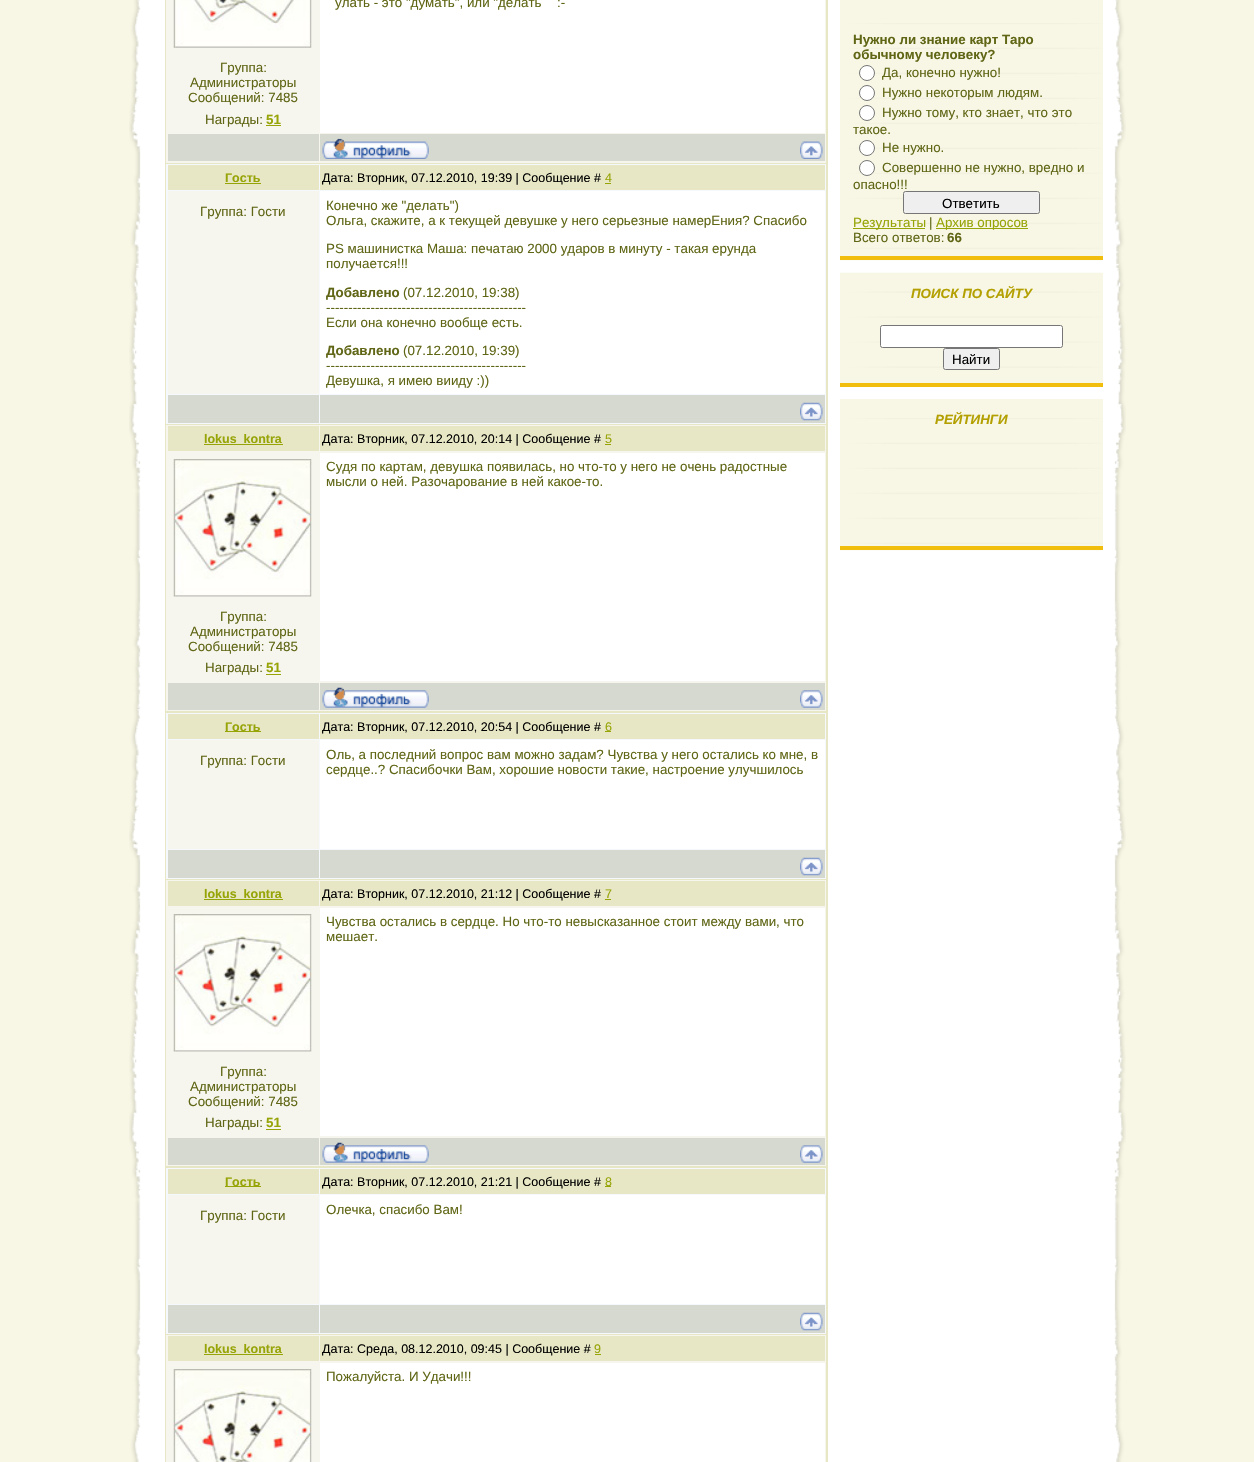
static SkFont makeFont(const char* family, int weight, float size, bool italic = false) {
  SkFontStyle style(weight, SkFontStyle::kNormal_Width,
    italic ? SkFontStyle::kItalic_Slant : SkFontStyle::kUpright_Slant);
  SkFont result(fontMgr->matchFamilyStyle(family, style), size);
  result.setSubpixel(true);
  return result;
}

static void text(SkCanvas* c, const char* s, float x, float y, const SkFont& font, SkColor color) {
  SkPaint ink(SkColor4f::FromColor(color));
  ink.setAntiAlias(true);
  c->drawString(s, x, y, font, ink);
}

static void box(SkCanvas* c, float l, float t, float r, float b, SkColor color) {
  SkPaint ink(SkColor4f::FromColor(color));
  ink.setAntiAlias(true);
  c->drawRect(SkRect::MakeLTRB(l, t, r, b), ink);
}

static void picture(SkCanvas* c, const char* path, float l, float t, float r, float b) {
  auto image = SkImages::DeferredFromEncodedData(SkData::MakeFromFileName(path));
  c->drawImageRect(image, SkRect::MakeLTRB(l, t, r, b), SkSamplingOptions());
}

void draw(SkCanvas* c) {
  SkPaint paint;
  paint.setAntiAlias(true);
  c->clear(0xfff8f7e5);
  picture(c, "img_01.png", 129, 0, 1126, 1462);
  box(c, 165, 0, 828, 1462, 0xffe7e7c5);
  box(c, 166, 0, 826, 163, 0xfff6f6ee);
  box(c, 320, 0, 825, 133, 0xffffffff);
  SkFont face1 = makeFont("Liberation Sans", 400, 13.35f);
  text(c, "улать - это \"думать\", или \"делать", 335, 7, face1, 0xff606615);
  text(c, ":-", 557, 7, face1, 0xff606615);
  picture(c, "img_02.png", 173, 0, 312, 48);
  text(c, "Группа:", 220, 72, face1, 0xff606615);
  text(c, "Администраторы", 190, 87, face1, 0xff606615);
  text(c, "Сообщений: 7485", 188, 102, face1, 0xff606615);
  text(c, "Награды:", 205, 124, face1, 0xff606615);
  SkFont face2 = makeFont("Liberation Sans", 700, 13.35f);
  text(c, "51", 266, 124, face2, 0xff97a408);
  box(c, 266, 125, 281, 126, 0xff97a408);
  box(c, 168, 134, 319, 161, 0xffd6d9d0);
  box(c, 320, 134, 825, 161, 0xffd6d9d0);
  picture(c, "img_03.png", 322, 138, 429, 159);
  picture(c, "img_04.png", 800, 141, 823, 159);
  box(c, 166, 164, 826, 424, 0xfff5f9fd);
  box(c, 168, 165, 319, 190, 0xffe7e7c5);
  SkFont face3 = makeFont("Liberation Sans", 700, 12.5f);
  text(c, "Гость", 225, 182, face3, 0xff97a408);
  box(c, 225, 183, 261, 184, 0xff97a408);
  box(c, 320, 165, 825, 190, 0xffe7e7c5);
  SkFont face4 = makeFont("Liberation Sans", 400, 12.5f);
  text(c, "Дата: Вторник, 07.12.2010, 19:39 | Сообщение #", 322, 182, face4, 0xff000000);
  text(c, "4", 605, 182, face4, 0xff97a408);
  box(c, 605, 183, 611, 184, 0xff97a408);
  box(c, 168, 191, 319, 394, 0xfff6f6ee);
  text(c, "Группа: Гости", 200, 216, face1, 0xff606615);
  box(c, 320, 191, 825, 394, 0xffffffff);
  text(c, "Конечно же \"делать\")", 326, 210, face1, 0xff606615);
  text(c, "Ольга, скажите, а к текущей девушке у него серьезные намерЕния? Спасибо", 326, 225, face1, 0xff606615);
  text(c, "PS машинистка Маша: печатаю 2000 ударов в минуту - такая ерунда", 326, 253, face1, 0xff606615);
  text(c, "получается!!!", 326, 268, face1, 0xff606615);
  text(c, "Добавлено", 326, 297, face2, 0xff606615);
  text(c, "(07.12.2010, 19:38)", 403, 297, face1, 0xff606615);
  text(c, "---------------------------------------------", 326, 312, face1, 0xff606615);
  text(c, "Если она конечно вообще есть.", 326, 327, face1, 0xff606615);
  text(c, "Добавлено", 326, 355, face2, 0xff606615);
  text(c, "(07.12.2010, 19:39)", 403, 355, face1, 0xff606615);
  text(c, "---------------------------------------------", 326, 370, face1, 0xff606615);
  text(c, "Девушка, я имею вииду :))", 326, 385, face1, 0xff606615);
  box(c, 168, 395, 319, 423, 0xffd6d9d0);
  box(c, 320, 395, 825, 423, 0xffd6d9d0);
  picture(c, "img_05.png", 800, 402, 823, 421);
  box(c, 166, 425, 826, 711, 0xfff6f6ee);
  box(c, 168, 426, 319, 451, 0xffe7e7c5);
  box(c, 204, 444, 283, 445, 0xff97a408);
  text(c, "lokus_kontra", 204, 443, face3, 0xff97a408);
  box(c, 320, 426, 825, 451, 0xffe7e7c5);
  text(c, "Дата: Вторник, 07.12.2010, 20:14 | Сообщение #", 322, 443, face4, 0xff000000);
  text(c, "5", 605, 443, face4, 0xff97a408);
  box(c, 605, 444, 611, 445, 0xff97a408);
  box(c, 320, 453, 825, 681, 0xffffffff);
  text(c, "Судя по картам, девушка появилась, но что-то у него не очень радостные", 326, 471, face1, 0xff606615);
  text(c, "мысли о ней. Разочарование в ней какое-то.", 326, 486, face1, 0xff606615);
  picture(c, "img_06.png", 173, 459, 312, 597);
  text(c, "Группа:", 220, 621, face1, 0xff606615);
  text(c, "Администраторы", 190, 636, face1, 0xff606615);
  text(c, "Сообщений: 7485", 188, 651, face1, 0xff606615);
  text(c, "Награды:", 205, 672, face1, 0xff606615);
  text(c, "51", 266, 672, face2, 0xff97a408);
  box(c, 266, 674, 281, 675, 0xff97a408);
  box(c, 168, 683, 319, 710, 0xffd6d9d0);
  box(c, 320, 683, 825, 710, 0xffd6d9d0);
  picture(c, "img_07.png", 322, 687, 429, 708);
  picture(c, "img_08.png", 800, 690, 823, 708);
  box(c, 166, 713, 826, 879, 0xfff5f9fd);
  box(c, 168, 714, 319, 739, 0xffe7e7c5);
  box(c, 225, 731, 261, 732, 0xff97a408);
  text(c, "Гость", 225, 731, face3, 0xff97a408);
  box(c, 320, 714, 825, 739, 0xffe7e7c5);
  text(c, "Дата: Вторник, 07.12.2010, 20:54 | Сообщение #", 322, 731, face4, 0xff000000);
  box(c, 605, 731, 611, 732, 0xff97a408);
  text(c, "6", 605, 731, face4, 0xff97a408);
  box(c, 168, 740, 319, 849, 0xfff6f6ee);
  text(c, "Группа: Гости", 200, 765, face1, 0xff606615);
  box(c, 320, 740, 825, 849, 0xffffffff);
  text(c, "Оль, а последний вопрос вам можно задам? Чувства у него остались ко мне, в", 326, 759, face1, 0xff606615);
  text(c, "сердце..? Спасибочки Вам, хорошие новости такие, настроение улучшилось", 326, 774, face1, 0xff606615);
  box(c, 168, 850, 319, 878, 0xffd6d9d0);
  box(c, 320, 850, 825, 878, 0xffd6d9d0);
  picture(c, "img_05.png", 800, 857, 823, 876);
  box(c, 166, 880, 826, 1166, 0xfff6f6ee);
  box(c, 168, 881, 319, 906, 0xffe7e7c5);
  box(c, 204, 899, 283, 900, 0xff97a408);
  text(c, "lokus_kontra", 204, 898, face3, 0xff97a408);
  box(c, 320, 881, 825, 906, 0xffe7e7c5);
  text(c, "Дата: Вторник, 07.12.2010, 21:12 | Сообщение #", 322, 898, face4, 0xff000000);
  text(c, "7", 605, 898, face4, 0xff97a408);
  box(c, 605, 899, 611, 900, 0xff97a408);
  box(c, 320, 908, 825, 1136, 0xffffffff);
  text(c, "Чувства остались в сердце. Но что-то невысказанное стоит между вами, что", 326, 926, face1, 0xff606615);
  text(c, "мешает.", 326, 941, face1, 0xff606615);
  picture(c, "img_09.png", 173, 914, 312, 1052);
  text(c, "Группа:", 220, 1076, face1, 0xff606615);
  text(c, "Администраторы", 190, 1091, face1, 0xff606615);
  text(c, "Сообщений: 7485", 188, 1106, face1, 0xff606615);
  text(c, "Награды:", 205, 1127, face1, 0xff606615);
  text(c, "51", 266, 1127, face2, 0xff97a408);
  box(c, 266, 1129, 281, 1130, 0xff97a408);
  box(c, 168, 1138, 319, 1165, 0xffd6d9d0);
  box(c, 320, 1138, 825, 1165, 0xffd6d9d0);
  picture(c, "img_07.png", 322, 1142, 429, 1163);
  picture(c, "img_08.png", 800, 1145, 823, 1163);
  box(c, 166, 1168, 826, 1334, 0xfff5f9fd);
  box(c, 168, 1169, 319, 1194, 0xffe7e7c5);
  box(c, 225, 1186, 261, 1187, 0xff97a408);
  text(c, "Гость", 225, 1186, face3, 0xff97a408);
  box(c, 320, 1169, 825, 1194, 0xffe7e7c5);
  text(c, "Дата: Вторник, 07.12.2010, 21:21 | Сообщение #", 322, 1186, face4, 0xff000000);
  box(c, 605, 1186, 611, 1187, 0xff97a408);
  text(c, "8", 605, 1186, face4, 0xff97a408);
  box(c, 168, 1195, 319, 1304, 0xfff6f6ee);
  text(c, "Группа: Гости", 200, 1220, face1, 0xff606615);
  box(c, 320, 1195, 825, 1304, 0xffffffff);
  text(c, "Олечка, спасибо Вам!", 326, 1214, face1, 0xff606615);
  box(c, 168, 1305, 319, 1333, 0xffd6d9d0);
  box(c, 320, 1305, 825, 1333, 0xffd6d9d0);
  picture(c, "img_05.png", 800, 1312, 823, 1331);
  box(c, 166, 1335, 826, 1462, 0xfff6f6ee);
  box(c, 168, 1336, 319, 1361, 0xffe7e7c5);
  box(c, 204, 1354, 283, 1355, 0xff97a408);
  text(c, "lokus_kontra", 204, 1353, face3, 0xff97a408);
  box(c, 320, 1336, 825, 1361, 0xffe7e7c5);
  text(c, "Дата: Среда, 08.12.2010, 09:45 | Сообщение #", 322, 1353, face4, 0xff000000);
  text(c, "9", 594, 1353, face4, 0xff97a408);
  box(c, 595, 1354, 601, 1355, 0xff97a408);
  picture(c, "img_10.png", 173, 1369, 312, 1462);
  box(c, 320, 1363, 825, 1462, 0xffffffff);
  text(c, "Пожалуйста. И Удачи!!!", 326, 1381, face1, 0xff606615);
  box(c, 840, 0, 1103, 256, 0xfff8f7e5);
  picture(c, "img_11.png", 840, 23, 1102, 261);
  box(c, 840, 256, 1103, 260, 0xfff1be0e);
  text(c, "Нужно ли знание карт Таро", 853, 44, face2, 0xff606615);
  text(c, "обычному человеку?", 853, 59, face2, 0xff606615);
  paint.setColor(0xffffffff);
  c->drawCircle(867, 73, 7.5f, paint);
  paint.setStyle(SkPaint::kStroke_Style);
  paint.setStrokeWidth(1);
  paint.setColor(0xff767676);
  c->drawCircle(867, 73, 7.5f, paint);
  text(c, "Да, конечно нужно!", 882, 77, face1, 0xff606615);
  paint.setStyle(SkPaint::kFill_Style);
  paint.setColor(0xffffffff);
  c->drawCircle(867, 93, 7.5f, paint);
  paint.setStyle(SkPaint::kStroke_Style);
  paint.setColor(0xff767676);
  c->drawCircle(867, 93, 7.5f, paint);
  text(c, "Нужно некоторым людям.", 882, 97, face1, 0xff606615);
  paint.setStyle(SkPaint::kFill_Style);
  paint.setColor(0xffffffff);
  c->drawCircle(867, 113, 7.5f, paint);
  paint.setStyle(SkPaint::kStroke_Style);
  paint.setColor(0xff767676);
  c->drawCircle(867, 113, 7.5f, paint);
  text(c, "Нужно тому, кто знает, что это", 882, 117, face1, 0xff606615);
  text(c, "такое.", 853, 134, face1, 0xff606615);
  paint.setStyle(SkPaint::kFill_Style);
  paint.setColor(0xffffffff);
  c->drawCircle(867, 148, 7.5f, paint);
  paint.setStyle(SkPaint::kStroke_Style);
  paint.setColor(0xff767676);
  c->drawCircle(867, 148, 7.5f, paint);
  text(c, "Не нужно.", 882, 152, face1, 0xff606615);
  paint.setStyle(SkPaint::kFill_Style);
  paint.setColor(0xffffffff);
  c->drawCircle(867, 168, 7.5f, paint);
  paint.setStyle(SkPaint::kStroke_Style);
  paint.setColor(0xff767676);
  c->drawCircle(867, 168, 7.5f, paint);
  text(c, "Совершенно не нужно, вредно и", 882, 172, face1, 0xff606615);
  text(c, "опасно!!!", 853, 189, face1, 0xff606615);
  paint.setStyle(SkPaint::kFill_Style);
  paint.setColor(0xffefefef);
  c->drawRoundRect(SkRect::MakeLTRB(903.5f, 191.5f, 1039.5f, 213.5f), 2, 2, paint);
  paint.setStyle(SkPaint::kStroke_Style);
  paint.setColor(0xff767676);
  c->drawRoundRect(SkRect::MakeLTRB(903.5f, 191.5f, 1039.5f, 213.5f), 2, 2, paint);
  text(c, "Ответить", 942, 208, face1, 0xff000000);
  box(c, 853, 228, 925, 229, 0xff97a408);
  text(c, "Результаты", 853, 227, face1, 0xff97a408);
  text(c, "|", 929, 227, face1, 0xff606615);
  box(c, 936, 228, 1028, 229, 0xff97a408);
  text(c, "Архив опросов", 936, 227, face1, 0xff97a408);
  text(c, "Всего ответов:", 853, 242, face1, 0xff606615);
  text(c, "66", 947, 242, face2, 0xff606615);
  box(c, 1102, 273, 1103, 383, 0xfff8f7e5);
  picture(c, "img_12.png", 840, 272, 1103, 383);
  box(c, 840, 383, 1103, 387, 0xfff1be0e);
  SkFont face5 = makeFont("Liberation Sans", 700, 13.35f, true);
  text(c, "ПОИСК ПО САЙТУ", 911, 298, face5, 0xffb3a000);
  paint.setStyle(SkPaint::kFill_Style);
  paint.setColor(0xffffffff);
  c->drawRoundRect(SkRect::MakeLTRB(880.5f, 325.5f, 1062.5f, 347.5f), 2, 2, paint);
  paint.setStyle(SkPaint::kStroke_Style);
  paint.setColor(0xff767676);
  c->drawRoundRect(SkRect::MakeLTRB(880.5f, 325.5f, 1062.5f, 347.5f), 2, 2, paint);
  paint.setStyle(SkPaint::kFill_Style);
  paint.setColor(0xffefefef);
  c->drawRoundRect(SkRect::MakeLTRB(943.5f, 348.5f, 999.5f, 369.5f), 2, 2, paint);
  paint.setStyle(SkPaint::kStroke_Style);
  paint.setColor(0xff767676);
  c->drawRoundRect(SkRect::MakeLTRB(943.5f, 348.5f, 999.5f, 369.5f), 2, 2, paint);
  text(c, "Найти", 952, 364, face1, 0xff000000);
  box(c, 840, 399, 1103, 546, 0xfff8f7e5);
  picture(c, "img_13.png", 840, 418, 1102, 551);
  box(c, 840, 546, 1103, 550, 0xfff1be0e);
  text(c, "РЕЙТИНГИ", 935, 424, face5, 0xffb3a000);
}
